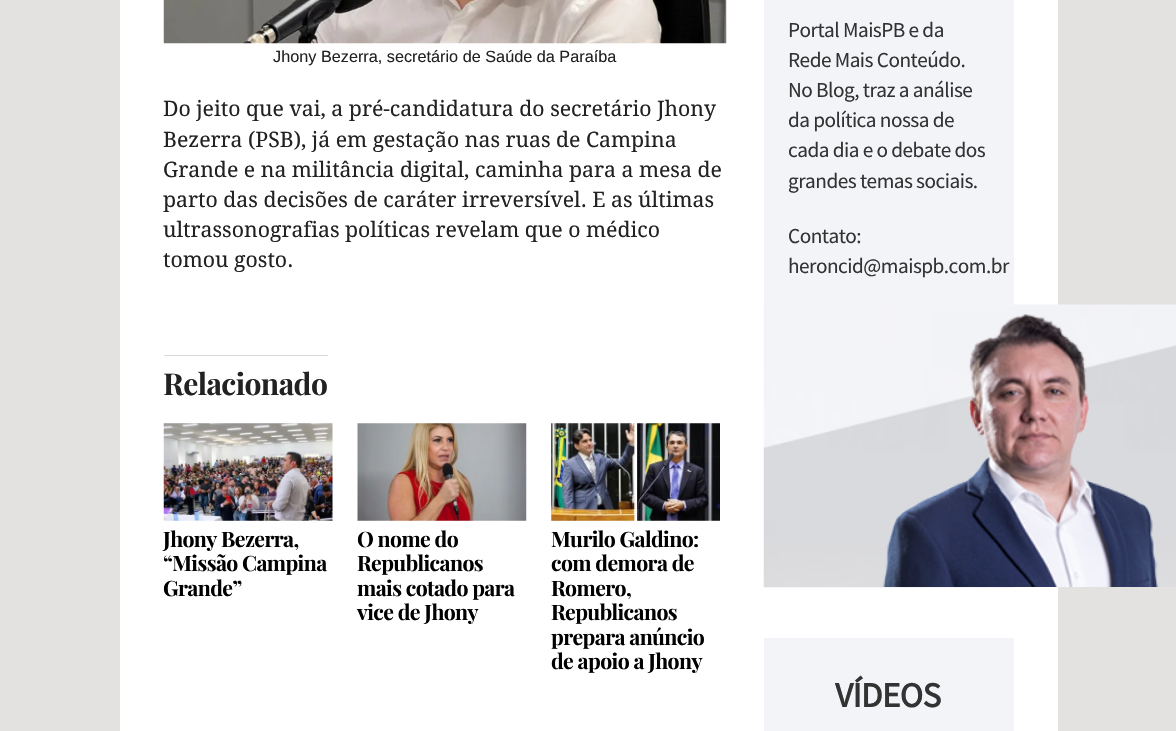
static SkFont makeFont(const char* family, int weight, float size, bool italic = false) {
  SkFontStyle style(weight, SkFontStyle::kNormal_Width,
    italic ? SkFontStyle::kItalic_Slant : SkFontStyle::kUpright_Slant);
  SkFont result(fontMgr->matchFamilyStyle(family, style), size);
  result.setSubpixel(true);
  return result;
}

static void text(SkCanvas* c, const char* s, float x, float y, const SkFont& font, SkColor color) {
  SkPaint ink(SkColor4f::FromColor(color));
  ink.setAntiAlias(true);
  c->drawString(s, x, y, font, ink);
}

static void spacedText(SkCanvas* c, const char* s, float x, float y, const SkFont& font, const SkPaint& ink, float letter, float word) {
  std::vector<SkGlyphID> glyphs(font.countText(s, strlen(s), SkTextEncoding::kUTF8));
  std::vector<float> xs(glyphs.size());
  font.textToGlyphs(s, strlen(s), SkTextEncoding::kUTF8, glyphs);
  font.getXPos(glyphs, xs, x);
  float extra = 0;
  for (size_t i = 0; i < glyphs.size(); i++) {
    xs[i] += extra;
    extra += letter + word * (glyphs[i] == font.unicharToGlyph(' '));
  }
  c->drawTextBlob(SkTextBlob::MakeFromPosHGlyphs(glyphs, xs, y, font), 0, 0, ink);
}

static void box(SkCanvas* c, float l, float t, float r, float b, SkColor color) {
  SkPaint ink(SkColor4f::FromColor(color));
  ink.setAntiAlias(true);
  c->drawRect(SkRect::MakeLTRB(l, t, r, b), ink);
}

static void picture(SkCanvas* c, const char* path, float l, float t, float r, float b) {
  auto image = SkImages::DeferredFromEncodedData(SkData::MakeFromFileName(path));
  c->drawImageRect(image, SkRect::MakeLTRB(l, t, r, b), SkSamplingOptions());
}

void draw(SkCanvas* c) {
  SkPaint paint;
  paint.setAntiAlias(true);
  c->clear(0xffe4e1e1);
  box(c, 120, 0, 1058, 731, 0xffffffff);
  picture(c, "img_01.png", 163, 0, 727, 44);
  SkFont face1 = makeFont("Liberation Sans", 400, 16.25f);
  text(c, "Jhony Bezerra, secretário de Saúde da Paraíba", 273, 62, face1, 0xff222222);
  SkFont face2 = makeFont("Droid Serif", 400, 21.25f);
  text(c, "Do jeito que vai, a pré-candidatura do secretário Jhony", 163, 116, face2, 0xff222222);
  text(c, "Bezerra (PSB), já em gestação nas ruas de Campina", 163, 147, face2, 0xff222222);
  text(c, "Grande e na militância digital, caminha para a mesa de", 163, 177, face2, 0xff222222);
  text(c, "parto das decisões de caráter irreversível. E as últimas", 163, 207, face2, 0xff222222);
  text(c, "ultrassonografias políticas revelam que o médico", 163, 237, face2, 0xff222222);
  text(c, "tomou gosto.", 163, 267, face2, 0xff222222);
  box(c, 164, 355, 328, 356, 0xffdbdbdb);
  SkFont face3 = makeFont("Playfair Display", 700, 30);
  paint.setColor(0xff222222);
  spacedText(c, "Relacionado", 163, 395, face3, paint, -0.6f, 0);
  picture(c, "img_02.png", 163, 423, 333, 521);
  SkFont face4 = makeFont("Playfair Display", 700, 21.25f);
  paint.setColor(0xff000000);
  spacedText(c, "Jhony Bezerra,", 163, 547, face4, paint, -0.6f, 0);
  spacedText(c, "“Missão Campina", 163, 571, face4, paint, -0.6f, 0);
  spacedText(c, "Grande”", 163, 596, face4, paint, -0.6f, 0);
  picture(c, "img_03.png", 357, 423, 527, 521);
  spacedText(c, "O nome do", 357, 547, face4, paint, -0.6f, 0);
  spacedText(c, "Republicanos", 357, 571, face4, paint, -0.6f, 0);
  spacedText(c, "mais cotado para", 357, 596, face4, paint, -0.6f, 0);
  spacedText(c, "vice de Jhony", 357, 620, face4, paint, -0.6f, 0);
  picture(c, "img_04.png", 551, 423, 720, 521);
  spacedText(c, "Murilo Galdino:", 551, 547, face4, paint, -0.6f, 0);
  spacedText(c, "com demora de", 551, 571, face4, paint, -0.6f, 0);
  spacedText(c, "Romero,", 551, 596, face4, paint, -0.6f, 0);
  spacedText(c, "Republicanos", 551, 620, face4, paint, -0.6f, 0);
  spacedText(c, "prepara anúncio", 551, 645, face4, paint, -0.6f, 0);
  spacedText(c, "de apoio a Jhony", 551, 669, face4, paint, -0.6f, 0);
  box(c, 764, 0, 1014, 588, 0xfff3f4f8);
  SkFont face5 = makeFont("Source Sans Pro", 400, 21.25f);
  paint.setColor(0xff333333);
  spacedText(c, "Portal MaisPB e da", 788, 37, face5, paint, -0.5f, 0);
  spacedText(c, "Rede Mais Conteúdo.", 788, 67, face5, paint, -0.5f, 0);
  spacedText(c, "No Blog, traz a análise", 788, 97, face5, paint, -0.5f, 0);
  spacedText(c, "da política nossa de", 788, 127, face5, paint, -0.5f, 0);
  spacedText(c, "cada dia e o debate dos", 788, 157, face5, paint, -0.5f, 0);
  spacedText(c, "grandes temas sociais.", 788, 188, face5, paint, -0.5f, 0);
  spacedText(c, "Contato:", 788, 243, face5, paint, -0.5f, 0);
  spacedText(c, "heroncid@maispb.com.br", 788, 273, face5, paint, -0.5f, 0);
  picture(c, "img_05.png", 763, 304, 1176, 587);
  box(c, 764, 638, 1014, 731, 0xfff3f4f8);
  SkFont face6 = makeFont("Source Sans Pro", 700, 35);
  spacedText(c, "VÍDEOS", 835, 707, face6, paint, -0.6f, 0);
}
